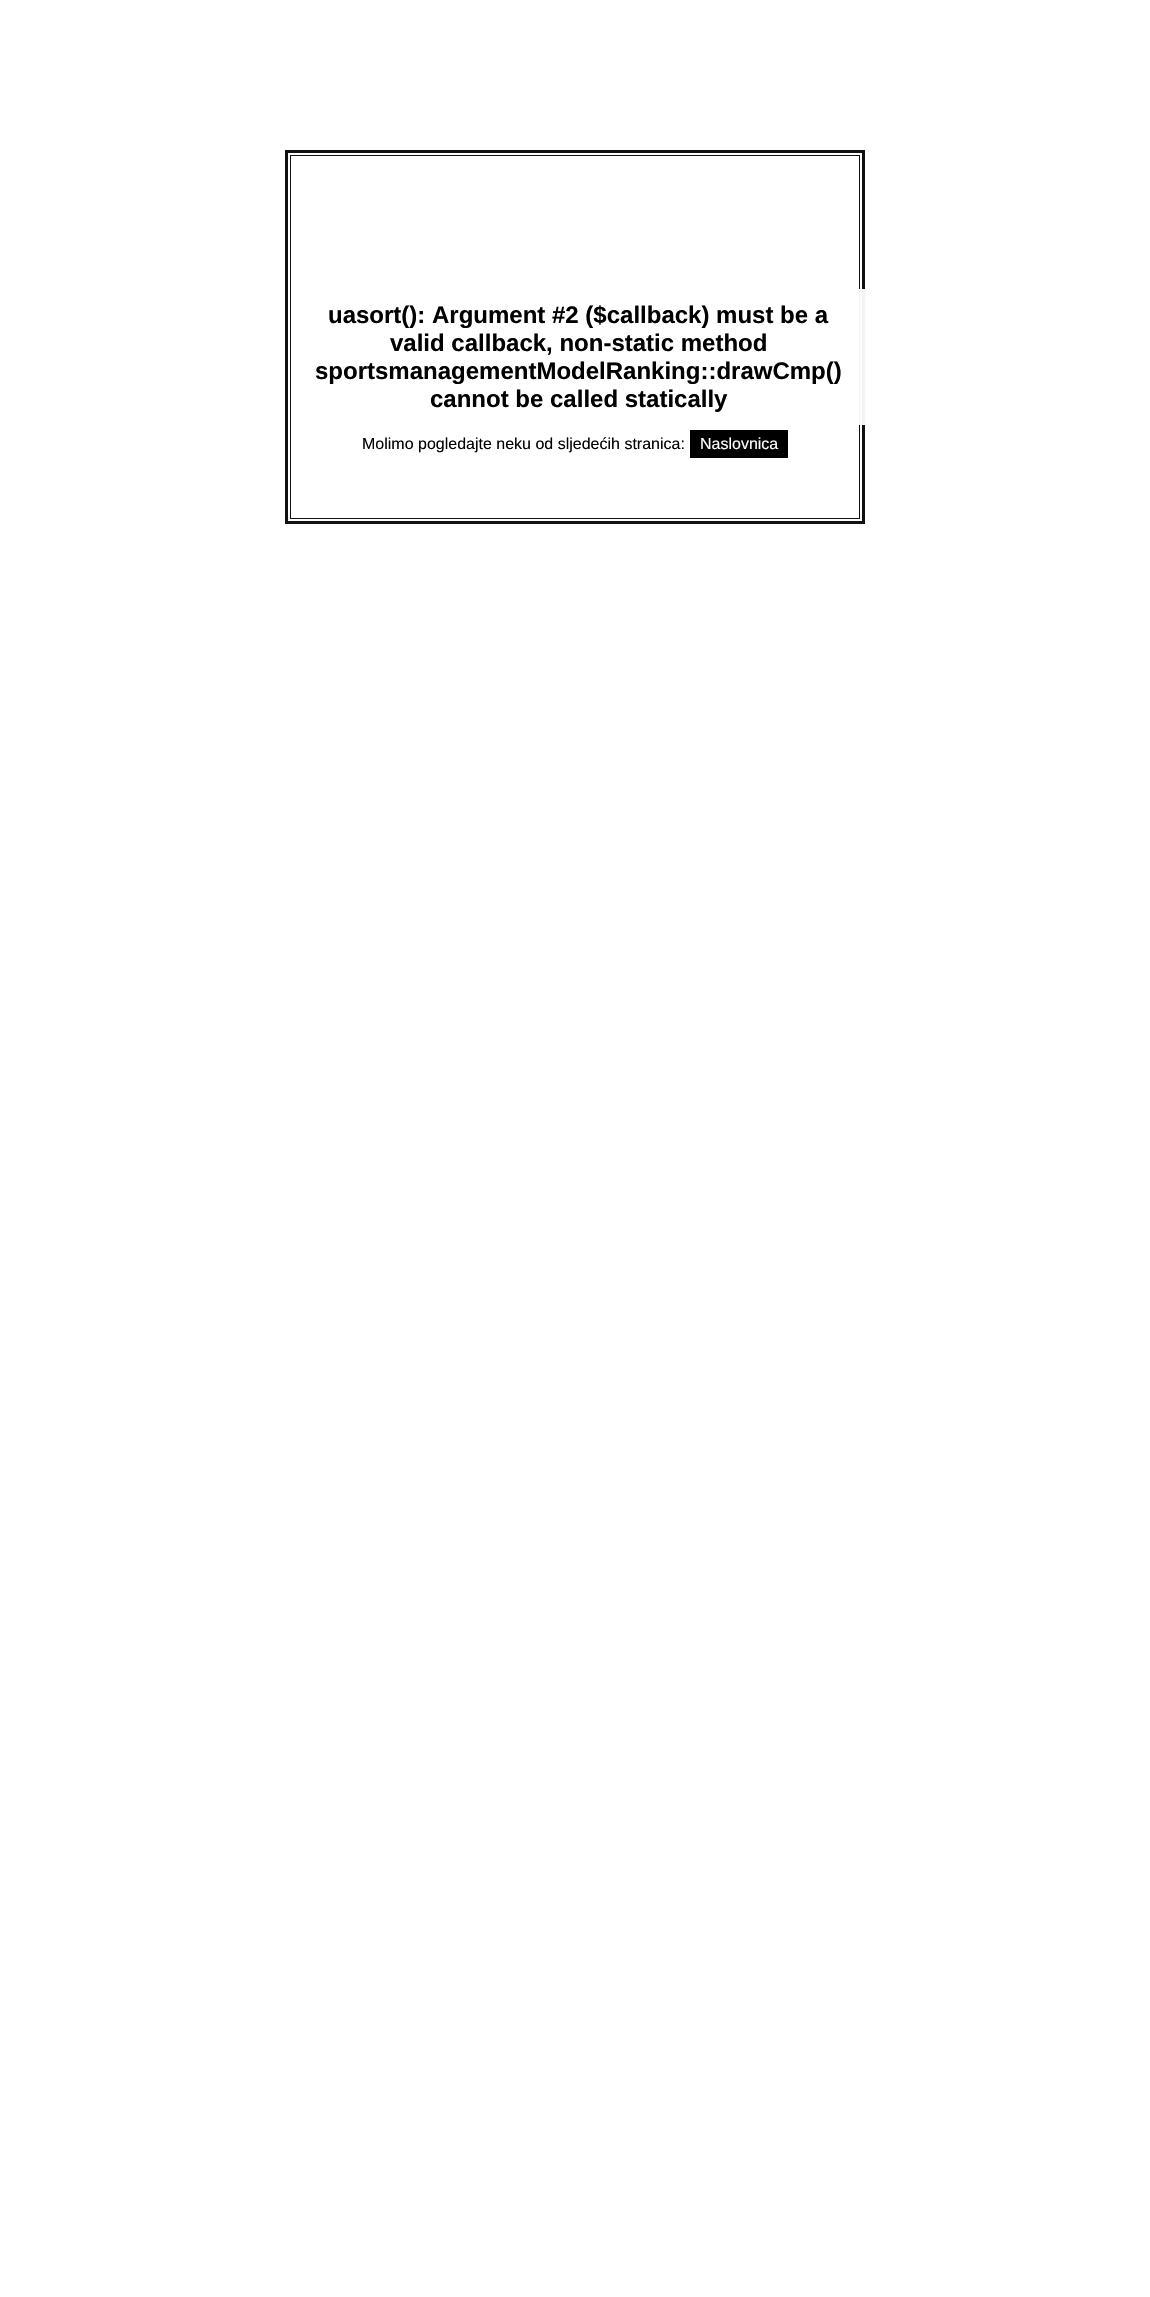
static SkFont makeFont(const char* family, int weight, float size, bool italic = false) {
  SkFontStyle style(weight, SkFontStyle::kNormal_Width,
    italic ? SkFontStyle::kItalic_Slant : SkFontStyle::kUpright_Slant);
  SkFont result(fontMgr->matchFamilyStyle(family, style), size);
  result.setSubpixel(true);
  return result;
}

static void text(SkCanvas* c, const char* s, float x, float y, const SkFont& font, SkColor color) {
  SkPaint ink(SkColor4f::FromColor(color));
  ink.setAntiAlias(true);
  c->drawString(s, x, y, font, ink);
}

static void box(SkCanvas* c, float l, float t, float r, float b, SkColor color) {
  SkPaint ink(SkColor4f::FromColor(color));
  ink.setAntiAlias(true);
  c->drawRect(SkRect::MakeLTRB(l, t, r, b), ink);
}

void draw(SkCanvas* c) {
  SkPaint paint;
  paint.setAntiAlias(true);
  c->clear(0xffffffff);
  paint.setStyle(SkPaint::kStroke_Style);
  paint.setStrokeWidth(3);
  paint.setColor(0xff111111);
  c->drawRect(SkRect::MakeLTRB(286.5f, 151.5f, 863.5f, 522.5f), paint);
  paint.setStrokeWidth(1);
  c->drawRect(SkRect::MakeLTRB(290.5f, 155.5f, 859.5f, 518.5f), paint);
  box(c, 859, 289, 865, 425, 0xf2ffffff);
  SkFont face1 = makeFont("Liberation Sans", 700, 24);
  text(c, "uasort(): Argument #2 ($callback) must be a", 328, 323, face1, 0xff000000);
  text(c, "valid callback, non-static method", 390, 351, face1, 0xff000000);
  text(c, "sportsmanagementModelRanking::drawCmp()", 315, 379, face1, 0xff000000);
  text(c, "cannot be called statically", 430, 407, face1, 0xff000000);
  SkFont face2 = makeFont("Liberation Sans", 400, 16);
  text(c, "Molimo pogledajte neku od sljedećih stranica:", 362, 449, face2, 0xff000000);
  box(c, 690, 430, 788, 458, 0xff000000);
  text(c, "Naslovnica", 700, 449, face2, 0xffffffff);
}
